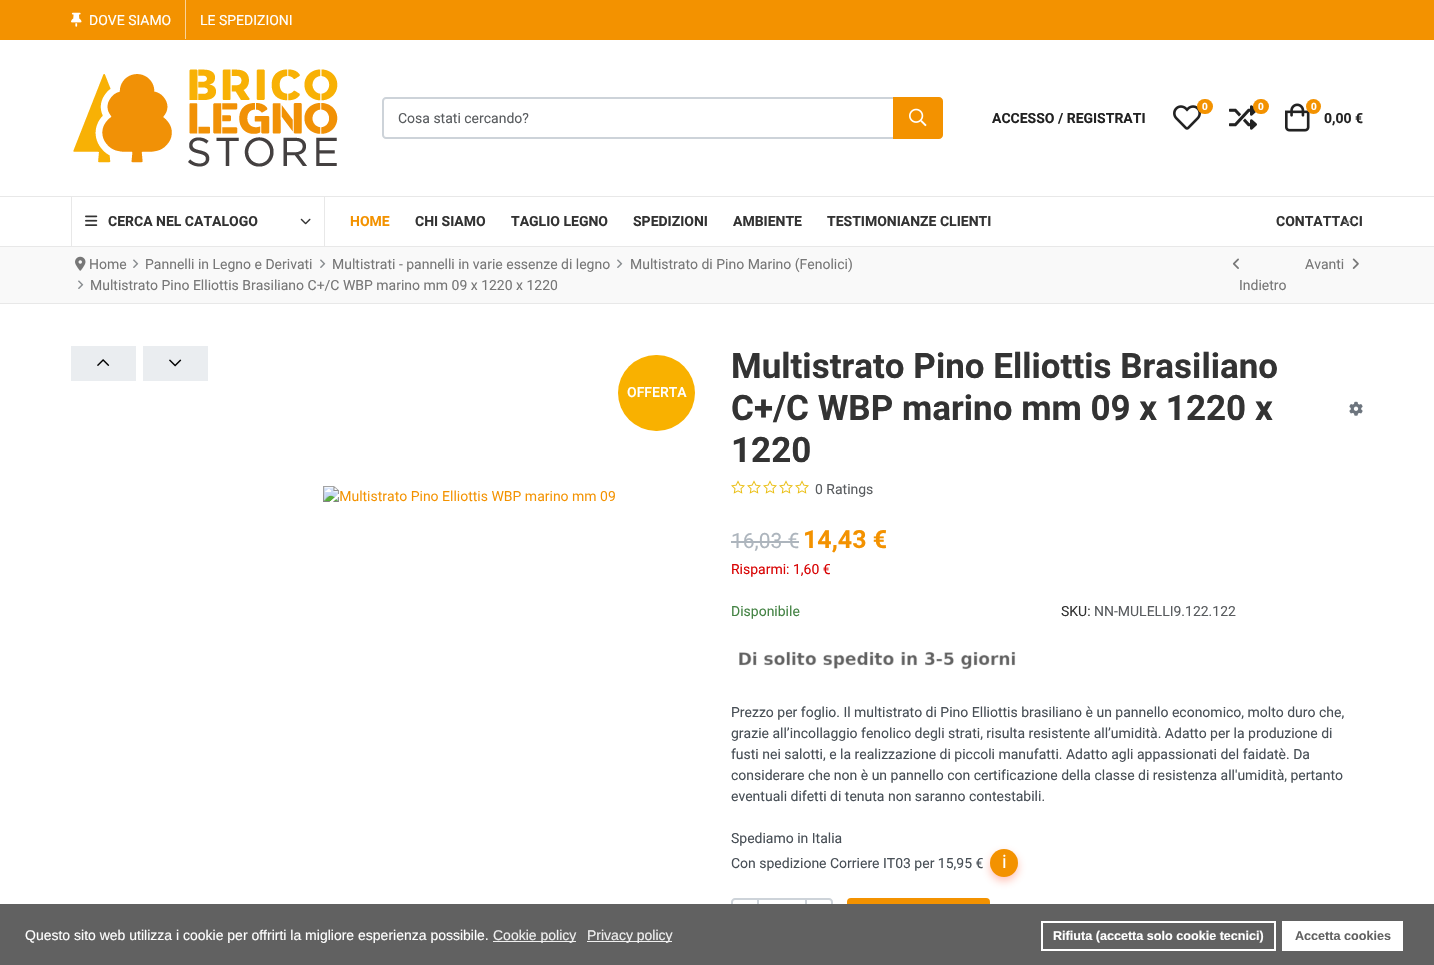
static SkFont makeFont(const char* family, int weight, float size, bool italic = false) {
  SkFontStyle style(weight, SkFontStyle::kNormal_Width,
    italic ? SkFontStyle::kItalic_Slant : SkFontStyle::kUpright_Slant);
  SkFont result(fontMgr->matchFamilyStyle(family, style), size);
  result.setSubpixel(true);
  return result;
}

static void text(SkCanvas* c, const char* s, float x, float y, const SkFont& font, SkColor color) {
  SkPaint ink(SkColor4f::FromColor(color));
  ink.setAntiAlias(true);
  c->drawString(s, x, y, font, ink);
}

static void box(SkCanvas* c, float l, float t, float r, float b, SkColor color) {
  SkPaint ink(SkColor4f::FromColor(color));
  ink.setAntiAlias(true);
  c->drawRect(SkRect::MakeLTRB(l, t, r, b), ink);
}

static void roundBox(SkCanvas* c, float l, float t, float r, float b, float radius, SkColor color) {
  SkPaint ink(SkColor4f::FromColor(color));
  ink.setAntiAlias(true);
  c->drawRoundRect(SkRect::MakeLTRB(l, t, r, b), radius, radius, ink);
}

static void picture(SkCanvas* c, const char* path, float l, float t, float r, float b) {
  auto image = SkImages::DeferredFromEncodedData(SkData::MakeFromFileName(path));
  c->drawImageRect(image, SkRect::MakeLTRB(l, t, r, b), SkSamplingOptions());
}

void draw(SkCanvas* c) {
  SkPaint paint;
  paint.setAntiAlias(true);
  c->clear(0xffffffff);
  box(c, 0, 0, 1434, 40, 0xfff39200);
  picture(c, "img_01.png", 71, 12, 82, 27);
  SkFont face1 = makeFont("Roboto", 400, 14);
  text(c, "DOVE SIAMO", 89, 25, face1, 0xffffffff);
  box(c, 185, 0, 186, 39, 0xfffad399);
  text(c, "LE SPEDIZIONI", 200, 25, face1, 0xffffffff);
  picture(c, "img_02.png", 73, 69, 338, 167);
  paint.setStyle(SkPaint::kStroke_Style);
  paint.setStrokeWidth(2);
  paint.setColor(0xffcdd3d9);
  c->drawPath(SkPathBuilder().moveTo(386, 98).lineTo(894, 98).lineTo(894, 138).lineTo(386, 138).cubicTo(384.5f, 138, 383, 136.5f, 383, 135).lineTo(383, 101).cubicTo(383, 99.5f, 384.5f, 98, 386, 98).close().detach(), paint);
  text(c, "Cosa stati cercando?", 398, 123, face1, 0xff595c5f);
  paint.setStyle(SkPaint::kFill_Style);
  paint.setColor(0xfff39200);
  c->drawPath(SkPathBuilder().moveTo(894, 98).lineTo(939, 98).cubicTo(940.5f, 98, 942, 99.5f, 942, 101).lineTo(942, 135).cubicTo(942, 136.5f, 940.5f, 138, 939, 138).lineTo(894, 138).close().detach(), paint);
  paint.setStyle(SkPaint::kStroke_Style);
  c->drawPath(SkPathBuilder().moveTo(894, 98).lineTo(939, 98).cubicTo(940.5f, 98, 942, 99.5f, 942, 101).lineTo(942, 135).cubicTo(942, 136.5f, 940.5f, 138, 939, 138).lineTo(894, 138).close().detach(), paint);
  picture(c, "img_03.png", 909, 108, 927, 127);
  SkFont face2 = makeFont("Roboto", 700, 14);
  text(c, "ACCESSO / REGISTRATI", 992, 123, face2, 0xff222222);
  picture(c, "img_04.png", 1173, 105, 1201, 130);
  roundBox(c, 1197, 99, 1213, 114, 7.5f, 0xfff39200);
  SkFont face3 = makeFont("Roboto", 700, 10);
  text(c, "0", 1202, 110, face3, 0xffffffff);
  picture(c, "img_05.png", 1229, 105, 1257, 130);
  roundBox(c, 1253, 99, 1269, 114, 7.5f, 0xfff39200);
  text(c, "0", 1258, 110, face3, 0xffffffff);
  picture(c, "img_06.png", 1285, 103, 1310, 132);
  paint.setStyle(SkPaint::kFill_Style);
  c->drawCircle(1313.5f, 106.5f, 7.5f, paint);
  text(c, "0", 1311, 110, face3, 0xffffffff);
  text(c, "0,00 €", 1324, 123, face2, 0xff222222);
  box(c, 0, 196, 1434, 197, 0xffe8e8e8);
  box(c, 0, 246, 1434, 247, 0xffe8e8e8);
  paint.setStyle(SkPaint::kStroke_Style);
  paint.setStrokeWidth(1);
  paint.setColor(0xffe8e8e8);
  c->drawRect(SkRect::MakeLTRB(71.5f, 196.5f, 324.5f, 246.5f), paint);
  picture(c, "img_07.png", 85, 215, 98, 226);
  text(c, "CERCA NEL CATALOGO", 108, 226, face2, 0xff333333);
  picture(c, "img_08.png", 300, 218, 311, 225);
  text(c, "HOME", 350, 226, face2, 0xfff39200);
  text(c, "CHI SIAMO", 415, 226, face2, 0xff333333);
  text(c, "TAGLIO LEGNO", 511, 226, face2, 0xff333333);
  text(c, "SPEDIZIONI", 633, 226, face2, 0xff333333);
  text(c, "AMBIENTE", 733, 226, face2, 0xff333333);
  text(c, "TESTIMONIANZE CLIENTI", 827, 226, face2, 0xff333333);
  text(c, "CONTATTACI", 1276, 226, face2, 0xff333333);
  picture(c, "img_09.png", 1343, 220, 1351, 225);
  box(c, 0, 247, 1434, 303, 0xfff9f9f9);
  box(c, 0, 303, 1434, 304, 0xffe8e8e8);
  picture(c, "img_10.png", 75, 256, 86, 271);
  text(c, "Home", 89, 269, face1, 0xff777777);
  picture(c, "img_11.png", 133, 259, 139, 268);
  text(c, "Pannelli in Legno e Derivati", 145, 269, face1, 0xff777777);
  picture(c, "img_11.png", 320, 259, 326, 268);
  text(c, "Multistrati - pannelli in varie essenze di legno", 332, 269, face1, 0xff777777);
  picture(c, "img_11.png", 617, 259, 623, 268);
  text(c, "Multistrato di Pino Marino (Fenolici)", 630, 269, face1, 0xff777777);
  picture(c, "img_11.png", 78, 280, 84, 289);
  text(c, "Multistrato Pino Elliottis Brasiliano C+/C WBP marino mm 09 x 1220 x 1220", 90, 290, face1, 0xff777777);
  text(c, "Avanti", 1305, 269, face1, 0xff777777);
  picture(c, "img_12.png", 1352, 258, 1359, 269);
  picture(c, "img_13.png", 1232, 258, 1239, 269);
  text(c, "Indietro", 1239, 290, face1, 0xff777777);
  box(c, 71, 346, 136, 381, 0xffeaedf0);
  picture(c, "img_14.png", 97, 359, 110, 366);
  box(c, 143, 346, 208, 381, 0xffeaedf0);
  picture(c, "img_15.png", 169, 359, 182, 367);
  picture(c, "img_16.png", 323, 486, 615, 502);
  roundBox(c, 618, 355, 695, 431, 38, 0xfff9b100);
  SkFont face4 = makeFont("Roboto", 500, 14);
  text(c, "OFFERTA", 627, 397, face4, 0xffffffff);
  SkFont face5 = makeFont("Roboto", 700, 35);
  text(c, "Multistrato Pino Elliottis Brasiliano", 731, 378, face5, 0xff333333);
  text(c, "C+/C WBP marino mm 09 x 1220 x", 731, 420, face5, 0xff333333);
  text(c, "1220", 731, 462, face5, 0xff333333);
  picture(c, "img_17.png", 1349, 401, 1363, 416);
  picture(c, "img_18.png", 731, 480, 745, 494);
  picture(c, "img_18.png", 747, 480, 761, 494);
  picture(c, "img_18.png", 763, 480, 777, 494);
  picture(c, "img_18.png", 779, 480, 793, 494);
  picture(c, "img_18.png", 795, 480, 809, 494);
  text(c, "0 Ratings", 815, 494, face1, 0xff595c5f);
  SkFont face6 = makeFont("Roboto", 400, 21);
  text(c, "16,03 €", 731, 548, face6, 0xffadb5bd);
  box(c, 731, 541, 799, 543, 0xffadb5bd);
  SkFont face7 = makeFont("Roboto", 700, 25);
  text(c, "14,43 €", 803, 548, face7, 0xfff39200);
  text(c, "Risparmi: 1,60 €", 731, 574, face1, 0xffd90505);
  text(c, "Disponibile", 731, 616, face1, 0xff448344);
  picture(c, "img_19.png", 739, 651, 1016, 670);
  text(c, "SKU:", 1061, 616, face1, 0xff333333);
  text(c, "NN-MULELLI9.122.122", 1094, 616, face1, 0xff595c5f);
  text(c, "Prezzo per foglio. Il multistrato di Pino Elliottis brasiliano è un pannello economico, molto duro che,", 731, 717, face1, 0xff484f56);
  text(c, "grazie all’incollaggio fenolico degli strati, risulta resistente all’umidità. Adatto per la produzione di", 731, 738, face1, 0xff484f56);
  text(c, "fusti nei salotti, e la realizzazione di piccoli manufatti. Adatto agli appassionati del faidatè. Da", 731, 759, face1, 0xff484f56);
  text(c, "considerare che non è un pannello con certificazione della classe di resistenza all'umidità, pertanto", 731, 780, face1, 0xff484f56);
  text(c, "eventuali difetti di tenuta non saranno contestabili.", 731, 801, face1, 0xff484f56);
  text(c, "Spediamo in Italia", 731, 843, face1, 0xff484f56);
  text(c, "Con spedizione Corriere IT03 per 15,95 €", 731, 868, face1, 0xff484f56);
  paint.setStyle(SkPaint::kFill_Style);
  paint.setColor(0x66ff6347);
  paint.setMaskFilter(SkMaskFilter::MakeBlur(kNormal_SkBlurStyle, 4));
  c->drawRoundRect(SkRect::MakeLTRB(990, 853, 1018, 881), 14, 14, paint);
  paint.setMaskFilter(nullptr);
  paint.setColor(0xfff39200);
  c->drawCircle(1004, 863, 14, paint);
  SkFont face8 = makeFont("Noto Sans", 400, 18);
  text(c, "ℹ", 1002, 868, face8, 0xffffffff);
  paint.setStyle(SkPaint::kStroke_Style);
  paint.setStrokeWidth(2);
  paint.setColor(0xffcdd3d9);
  c->drawRect(SkRect::MakeLTRB(758, 899, 806, 941), paint);
  paint.setStyle(SkPaint::kFill_Style);
  paint.setColor(0xffffffff);
  c->drawPath(SkPathBuilder().moveTo(735, 899).lineTo(758, 899).lineTo(758, 941).lineTo(735, 941).cubicTo(733.5f, 941, 732, 939.5f, 732, 938).lineTo(732, 902).cubicTo(732, 900.5f, 733.5f, 899, 735, 899).close().detach(), paint);
  paint.setStyle(SkPaint::kStroke_Style);
  paint.setColor(0xffcdd3d9);
  c->drawPath(SkPathBuilder().moveTo(735, 899).lineTo(758, 899).lineTo(758, 941).lineTo(735, 941).cubicTo(733.5f, 941, 732, 939.5f, 732, 938).lineTo(732, 902).cubicTo(732, 900.5f, 733.5f, 899, 735, 899).close().detach(), paint);
  paint.setStyle(SkPaint::kFill_Style);
  paint.setColor(0xffffffff);
  c->drawPath(SkPathBuilder().moveTo(806, 899).lineTo(829, 899).cubicTo(830.5f, 899, 832, 900.5f, 832, 902).lineTo(832, 938).cubicTo(832, 939.5f, 830.5f, 941, 829, 941).lineTo(806, 941).close().detach(), paint);
  paint.setStyle(SkPaint::kStroke_Style);
  paint.setColor(0xffcdd3d9);
  c->drawPath(SkPathBuilder().moveTo(806, 899).lineTo(829, 899).cubicTo(830.5f, 899, 832, 900.5f, 832, 902).lineTo(832, 938).cubicTo(832, 939.5f, 830.5f, 941, 829, 941).lineTo(806, 941).close().detach(), paint);
  paint.setStyle(SkPaint::kFill_Style);
  paint.setColor(0xfff39200);
  c->drawRoundRect(SkRect::MakeLTRB(848, 899, 989, 941), 3, 3, paint);
  paint.setStyle(SkPaint::kStroke_Style);
  c->drawRoundRect(SkRect::MakeLTRB(848, 899, 989, 941), 3, 3, paint);
  box(c, 0, 904, 1434, 965, 0xff616161);
  SkFont face9 = makeFont("Liberation Sans", 400, 14);
  text(c, "Questo sito web utilizza i cookie per offrirti la migliore esperienza possibile.", 25, 940, face9, 0xffffffff);
  box(c, 493, 941, 576, 942, 0xffefefef);
  text(c, "Cookie policy", 493, 940, face9, 0xffefefef);
  box(c, 587, 941, 672, 942, 0xffefefef);
  text(c, "Privacy policy", 587, 940, face9, 0xffefefef);
  paint.setColor(0xffffffff);
  c->drawRect(SkRect::MakeLTRB(1042, 922, 1275, 950), paint);
  SkFont face10 = makeFont("Liberation Sans", 700, 12.6f);
  text(c, "Rifiuta (accetta solo cookie tecnici)", 1053, 940, face10, 0xffffffff);
  box(c, 1282, 921, 1403, 951, 0xffffffff);
  text(c, "Accetta cookies", 1295, 940, face10, 0xff616161);
}
